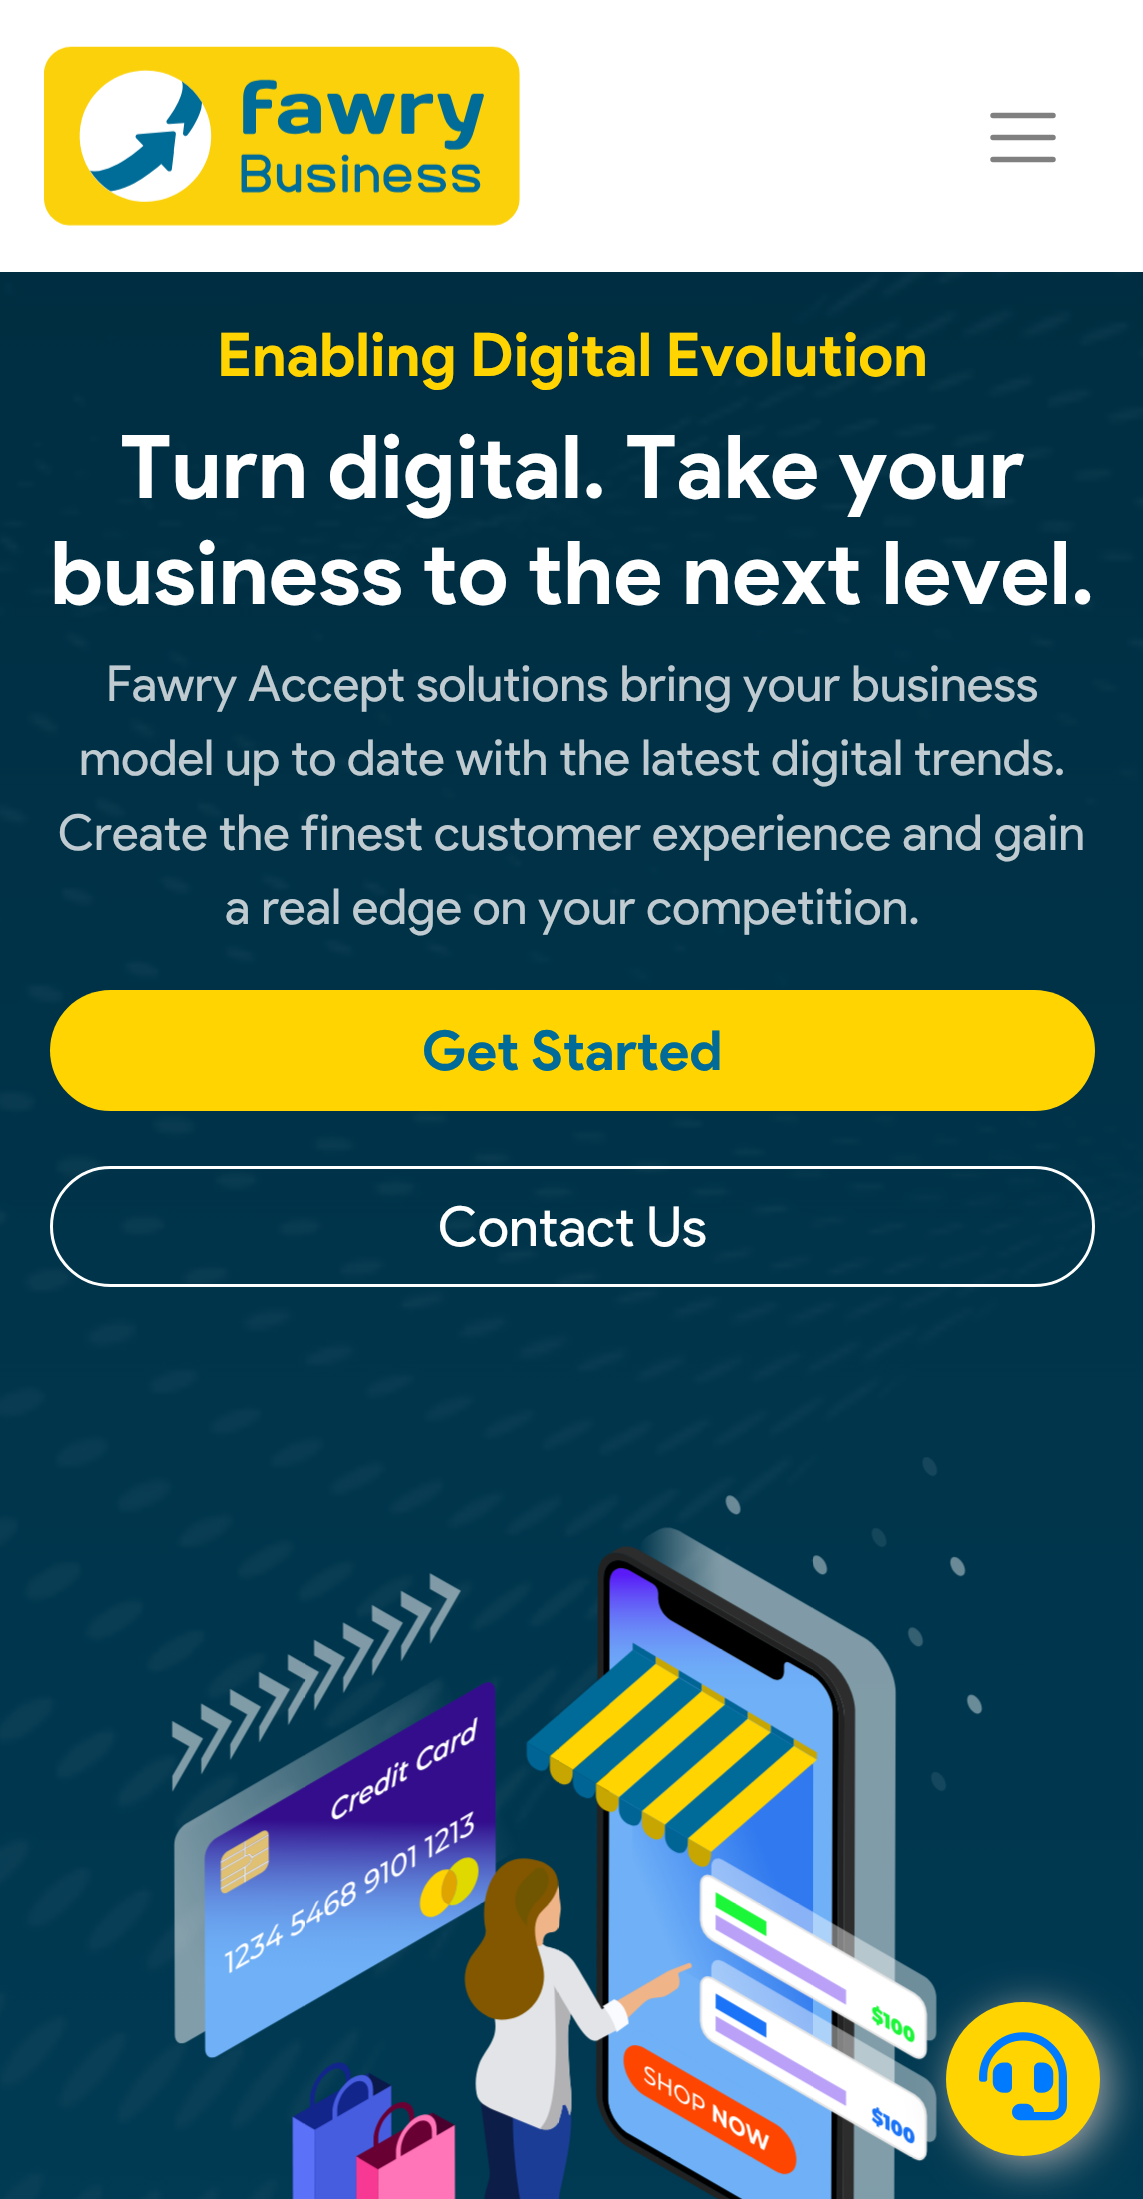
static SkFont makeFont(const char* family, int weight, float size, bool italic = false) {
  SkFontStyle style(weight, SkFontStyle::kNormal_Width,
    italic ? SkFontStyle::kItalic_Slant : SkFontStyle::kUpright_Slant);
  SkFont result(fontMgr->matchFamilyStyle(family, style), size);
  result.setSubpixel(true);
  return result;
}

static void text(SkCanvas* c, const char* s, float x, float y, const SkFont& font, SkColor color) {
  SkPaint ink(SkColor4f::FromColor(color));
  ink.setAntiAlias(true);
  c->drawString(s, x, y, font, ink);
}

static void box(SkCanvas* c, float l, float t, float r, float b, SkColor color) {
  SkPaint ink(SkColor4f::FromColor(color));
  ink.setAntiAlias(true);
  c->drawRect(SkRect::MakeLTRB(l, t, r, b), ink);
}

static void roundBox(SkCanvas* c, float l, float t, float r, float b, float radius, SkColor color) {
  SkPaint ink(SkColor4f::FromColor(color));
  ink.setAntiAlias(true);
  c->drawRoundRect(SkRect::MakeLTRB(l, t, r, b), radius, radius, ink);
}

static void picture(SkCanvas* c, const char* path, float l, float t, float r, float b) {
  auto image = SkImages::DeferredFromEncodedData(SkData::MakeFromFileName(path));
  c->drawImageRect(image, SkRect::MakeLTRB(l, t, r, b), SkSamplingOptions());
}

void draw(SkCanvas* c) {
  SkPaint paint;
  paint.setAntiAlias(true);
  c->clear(0xff002c3e);
  box(c, 0, 0, 1143, 272, 0xffffffff);
  picture(c, "img_01.png", 44, 46, 520, 226);
  paint.setStyle(SkPaint::kStroke_Style);
  paint.setStrokeWidth(5.5f);
  paint.setStrokeCap(SkPaint::kRound_Cap);
  paint.setColor(0xff818080);
  c->drawPath(SkPathBuilder().moveTo(993, 115.5f).lineTo(1053, 115.5f).moveTo(993, 137.5f).lineTo(1053, 137.5f).moveTo(993, 159.5f).lineTo(1053, 159.5f).detach(), paint);
  picture(c, "img_02.png", 0, 272, 1143, 2199);
  SkFont face1 = makeFont("Product Sans", 700, 60.5f);
  text(c, "Enabling Digital Evolution", 217, 376, face1, 0xffffd400);
  SkFont face2 = makeFont("Product Sans", 700, 88);
  text(c, "Turn digital. Take your", 120, 498, face2, 0xffffffff);
  text(c, "business to the next level.", 50, 604, face2, 0xffffffff);
  SkFont face3 = makeFont("Product Sans", 400, 49.5f);
  text(c, "Fawry Accept solutions bring your business", 106, 701, face3, 0xffbfcbd0);
  text(c, "model up to date with the latest digital trends.", 79, 775, face3, 0xffbfcbd0);
  text(c, "Create the finest customer experience and gain", 58, 850, face3, 0xffbfcbd0);
  text(c, "a real edge on your competition.", 225, 924, face3, 0xffbfcbd0);
  roundBox(c, 50, 990, 1095, 1111, 60.5f, 0xffffd400);
  SkFont face4 = makeFont("Product Sans", 700, 55);
  text(c, "Get Started", 422, 1070, face4, 0xff006b99);
  paint.setStrokeWidth(3);
  paint.setStrokeCap(SkPaint::kButt_Cap);
  paint.setColor(0xffffffff);
  c->drawRoundRect(SkRect::MakeLTRB(51.5f, 1167.5f, 1093.5f, 1285.5f), 59, 59, paint);
  SkFont face5 = makeFont("Product Sans", 400, 55);
  text(c, "Contact Us", 438, 1246, face5, 0xffffffff);
  picture(c, "img_03.png", 171, 1457, 983, 2199);
  paint.setStyle(SkPaint::kFill_Style);
  paint.setColor(0xffa7a7a7);
  paint.setMaskFilter(SkMaskFilter::MakeBlur(kNormal_SkBlurStyle, 22));
  c->drawRoundRect(SkRect::MakeLTRB(954, 2010, 1108, 2164), 77, 77, paint);
  paint.setMaskFilter(nullptr);
  paint.setColor(0xffffd400);
  c->drawCircle(1023, 2079, 77, paint);
  picture(c, "img_04.png", 979, 2032, 1067, 2121);
}
